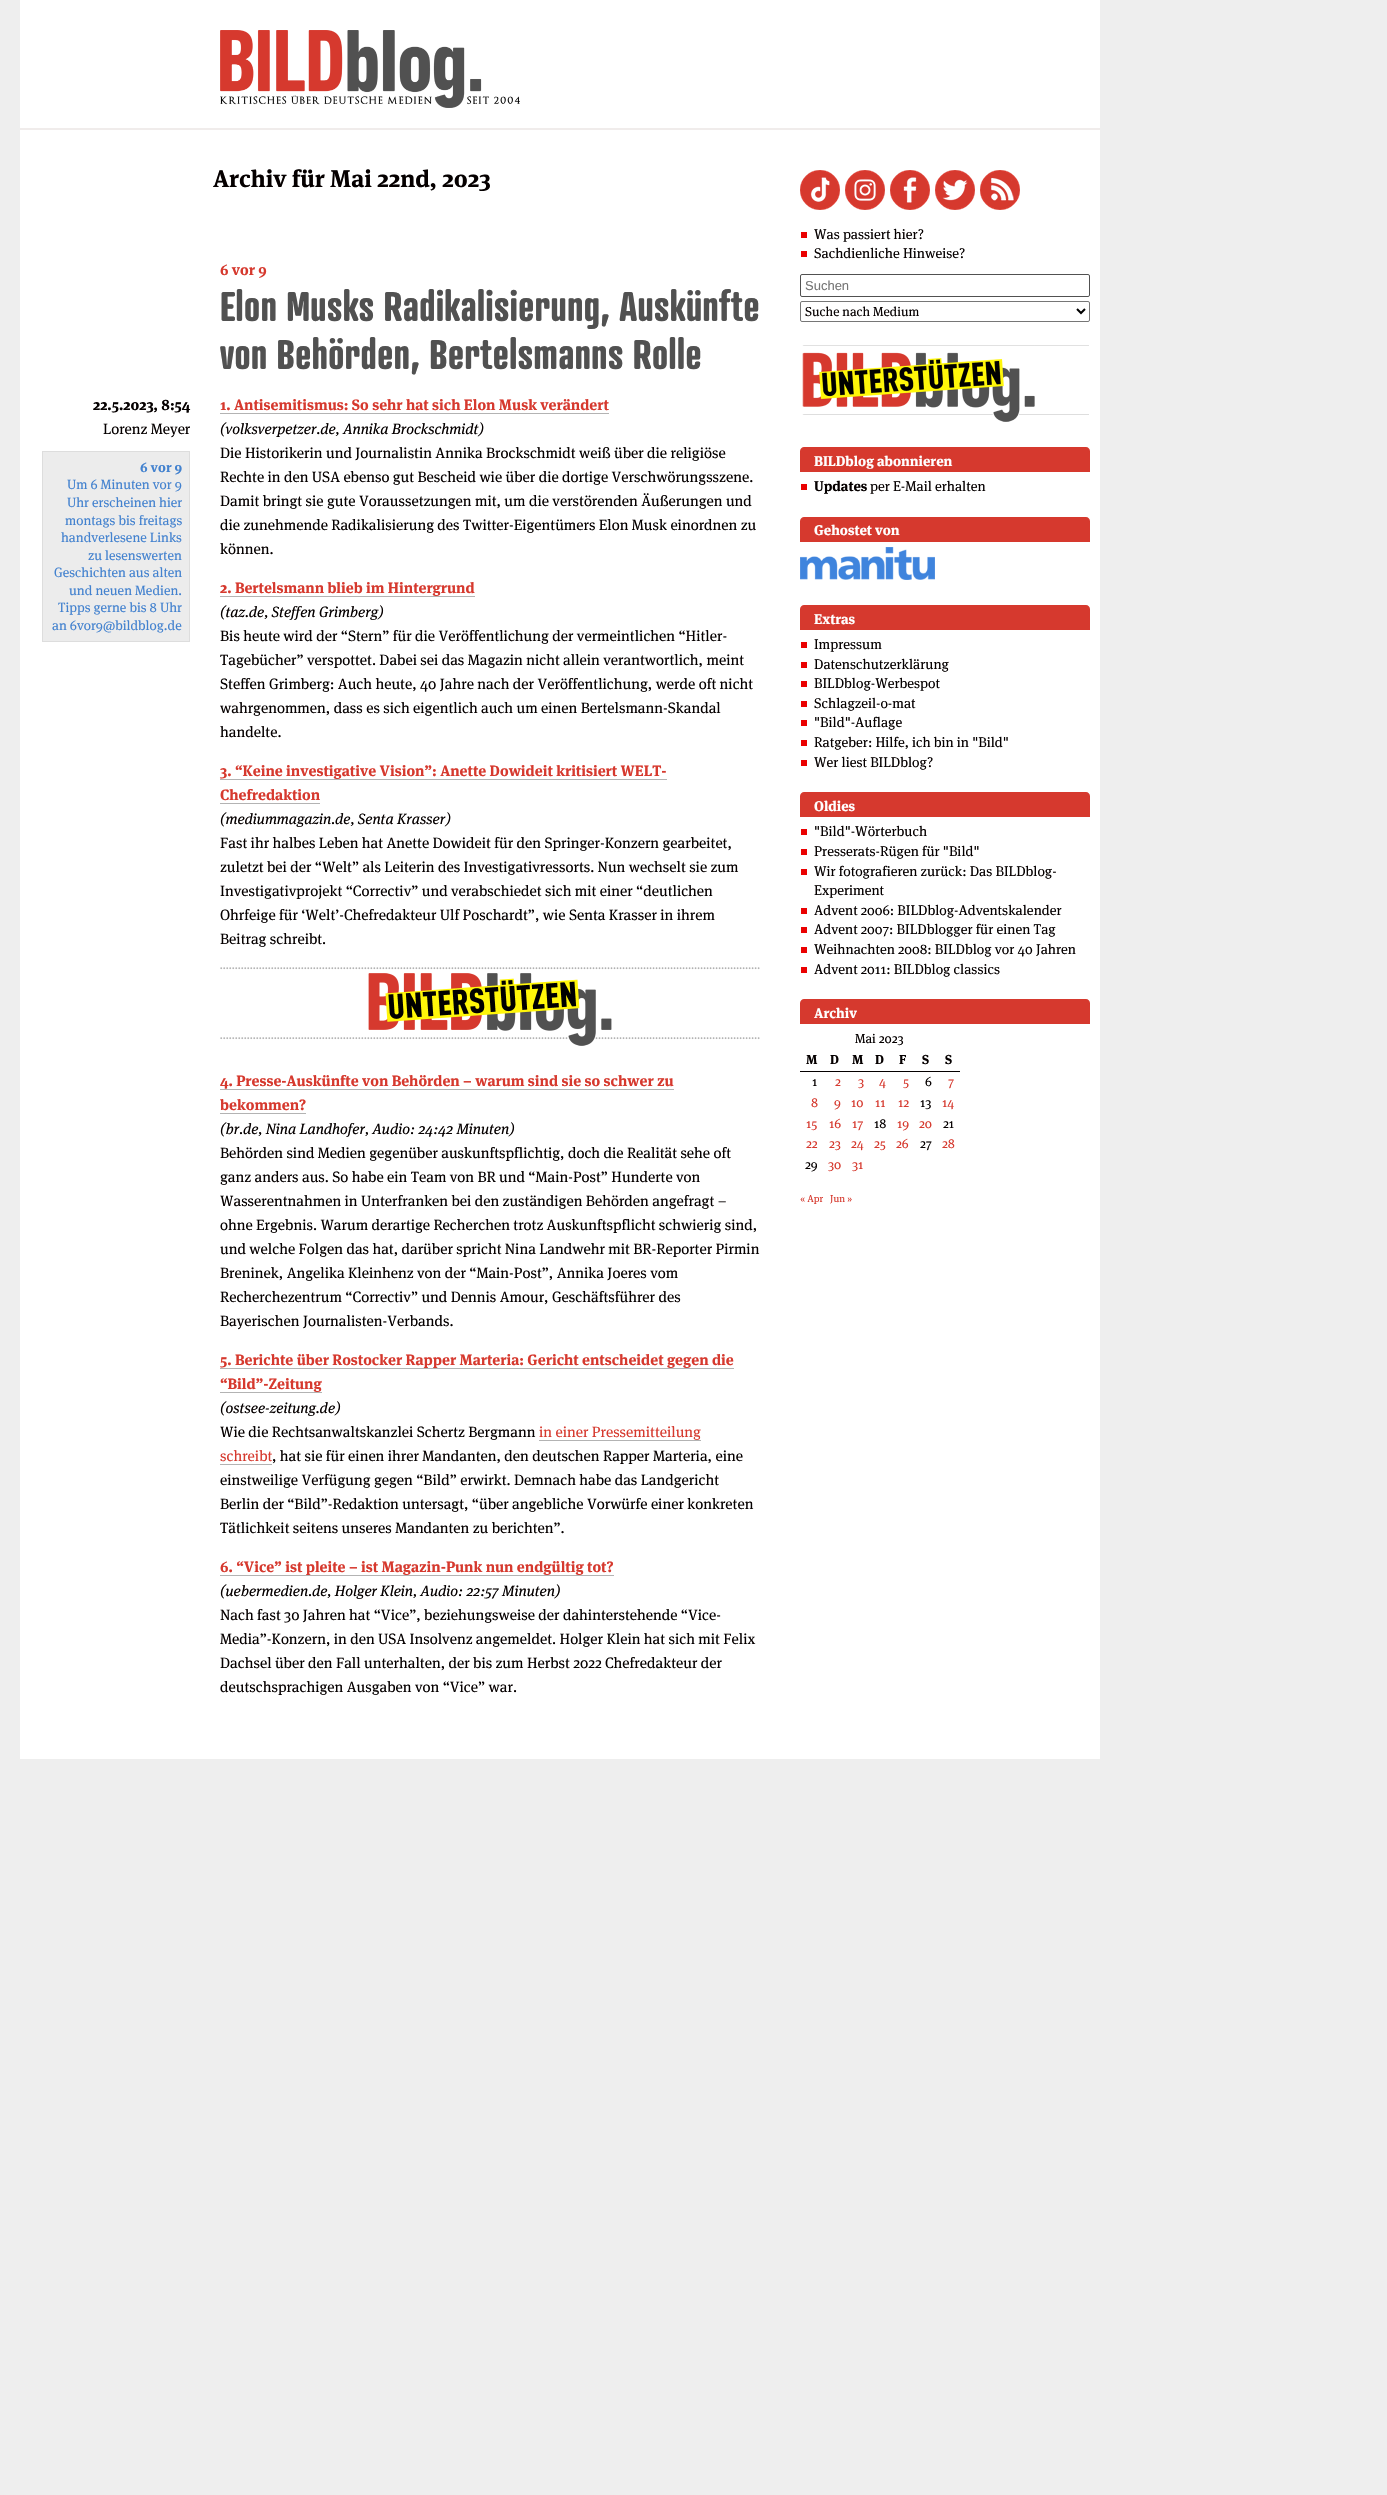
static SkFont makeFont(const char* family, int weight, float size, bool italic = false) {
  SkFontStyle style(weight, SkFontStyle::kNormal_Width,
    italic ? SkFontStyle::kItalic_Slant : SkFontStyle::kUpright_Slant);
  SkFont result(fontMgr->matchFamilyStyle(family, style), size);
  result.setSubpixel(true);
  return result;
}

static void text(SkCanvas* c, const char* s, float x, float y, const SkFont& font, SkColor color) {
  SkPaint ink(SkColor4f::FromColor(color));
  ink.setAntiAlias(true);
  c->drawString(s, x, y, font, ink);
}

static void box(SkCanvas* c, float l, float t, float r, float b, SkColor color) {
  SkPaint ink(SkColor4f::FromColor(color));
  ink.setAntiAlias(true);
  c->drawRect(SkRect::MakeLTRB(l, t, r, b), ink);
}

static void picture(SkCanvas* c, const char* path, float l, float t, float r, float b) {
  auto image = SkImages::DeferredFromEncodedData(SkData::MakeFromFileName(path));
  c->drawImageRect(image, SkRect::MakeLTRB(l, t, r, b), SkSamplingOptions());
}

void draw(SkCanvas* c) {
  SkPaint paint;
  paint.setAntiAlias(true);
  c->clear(0xffeeeeee);
  box(c, 20, 0, 1100, 1759, 0xffffffff);
  picture(c, "img_01.png", 220, 30, 520, 108);
  box(c, 20, 128, 1100, 130, 0xfff0eceb);
  SkFont face1 = makeFont("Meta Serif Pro", 700, 24);
  text(c, "Archiv für Mai 22nd, 2023", 213, 187, face1, 0xff050000);
  SkFont face2 = makeFont("Meta Serif Pro", 700, 15);
  text(c, "6 vor 9", 220, 275, face2, 0xffd6392e);
  SkFont face3 = makeFont("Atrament", 700, 40);
  text(c, "Elon Musks Radikalisierung, Auskünfte", 220, 321, face3, 0xff515151);
  text(c, "von Behörden, Bertelsmanns Rolle", 220, 369, face3, 0xff515151);
  text(c, "22.5.2023, 8:54", 93, 410, face2, 0xff050000);
  SkFont face4 = makeFont("Meta Serif Pro", 400, 15);
  text(c, "Lorenz Meyer", 103, 434, face4, 0xff050000);
  paint.setColor(0xffececec);
  c->drawRect(SkRect::MakeLTRB(42.5f, 451.5f, 189.5f, 641.5f), paint);
  paint.setStyle(SkPaint::kStroke_Style);
  paint.setStrokeWidth(1);
  paint.setColor(0xffdddddd);
  c->drawRect(SkRect::MakeLTRB(42.5f, 451.5f, 189.5f, 641.5f), paint);
  SkFont face5 = makeFont("Meta Serif Pro", 700, 13.5f);
  text(c, "6 vor 9", 140, 472, face5, 0xff4382cf);
  SkFont face6 = makeFont("Meta Serif Pro", 400, 13.5f);
  text(c, "Um 6 Minuten vor 9", 67, 489, face6, 0xff4382cf);
  text(c, "Uhr erscheinen hier", 67, 507, face6, 0xff4382cf);
  text(c, "montags bis freitags", 65, 525, face6, 0xff4382cf);
  text(c, "handverlesene Links", 61, 542, face6, 0xff4382cf);
  text(c, "zu lesenswerten", 88, 560, face6, 0xff4382cf);
  text(c, "Geschichten aus alten", 54, 577, face6, 0xff4382cf);
  text(c, "und neuen Medien.", 69, 595, face6, 0xff4382cf);
  text(c, "Tipps gerne bis 8 Uhr", 58, 612, face6, 0xff4382cf);
  text(c, "an 6vor9@bildblog.de", 52, 630, face6, 0xff4382cf);
  text(c, "1. Antisemitismus: So sehr hat sich Elon Musk verändert", 220, 410, face2, 0xffd6392e);
  box(c, 220, 413, 609, 414, 0xffb3b3b3);
  SkFont face7 = makeFont("Meta Serif Pro", 400, 15, true);
  text(c, "(volksverpetzer.de, Annika Brockschmidt)", 220, 434, face7, 0xff050000);
  text(c, "Die Historikerin und Journalistin Annika Brockschmidt weiß über die religiöse", 220, 458, face4, 0xff050000);
  text(c, "Rechte in den USA ebenso gut Bescheid wie über die dortige Verschwörungsszene.", 220, 482, face4, 0xff050000);
  text(c, "Damit bringt sie gute Voraussetzungen mit, um die verstörenden Äußerungen und", 220, 506, face4, 0xff050000);
  text(c, "die zunehmende Radikalisierung des Twitter-Eigentümers Elon Musk einordnen zu", 220, 530, face4, 0xff050000);
  text(c, "können.", 220, 554, face4, 0xff050000);
  text(c, "2. Bertelsmann blieb im Hintergrund", 220, 593, face2, 0xffd6392e);
  box(c, 220, 596, 475, 597, 0xffb3b3b3);
  text(c, "(taz.de, Steffen Grimberg)", 220, 617, face7, 0xff050000);
  text(c, "Bis heute wird der “Stern” für die Veröffentlichung der vermeintlichen “Hitler-", 220, 641, face4, 0xff050000);
  text(c, "Tagebücher” verspottet. Dabei sei das Magazin nicht allein verantwortlich, meint", 220, 665, face4, 0xff050000);
  text(c, "Steffen Grimberg: Auch heute, 40 Jahre nach der Veröffentlichung, werde oft nicht", 220, 689, face4, 0xff050000);
  text(c, "wahrgenommen, dass es sich eigentlich auch um einen Bertelsmann-Skandal", 220, 713, face4, 0xff050000);
  text(c, "handelte.", 220, 737, face4, 0xff050000);
  text(c, "3. “Keine investigative Vision”: Anette Dowideit kritisiert WELT-", 220, 776, face2, 0xffd6392e);
  box(c, 220, 779, 667, 780, 0xffb3b3b3);
  text(c, "Chefredaktion", 220, 800, face2, 0xffd6392e);
  box(c, 220, 803, 320, 804, 0xffb3b3b3);
  text(c, "(mediummagazin.de, Senta Krasser)", 220, 824, face7, 0xff050000);
  text(c, "Fast ihr halbes Leben hat Anette Dowideit für den Springer-Konzern gearbeitet,", 220, 848, face4, 0xff050000);
  text(c, "zuletzt bei der “Welt” als Leiterin des Investigativressorts. Nun wechselt sie zum", 220, 872, face4, 0xff050000);
  text(c, "Investigativprojekt “Correctiv” und verabschiedet sich mit einer “deutlichen", 220, 896, face4, 0xff050000);
  text(c, "Ohrfeige für ‘Welt’-Chefredakteur Ulf Poschardt”, wie Senta Krasser in ihrem", 220, 920, face4, 0xff050000);
  text(c, "Beitrag schreibt.", 220, 944, face4, 0xff050000);
  picture(c, "img_02.png", 220, 967, 760, 1046);
  text(c, "4. Presse-Auskünfte von Behörden – warum sind sie so schwer zu", 220, 1086, face2, 0xffd6392e);
  box(c, 220, 1089, 674, 1090, 0xffb3b3b3);
  text(c, "bekommen?", 220, 1110, face2, 0xffd6392e);
  box(c, 220, 1113, 306, 1114, 0xffb3b3b3);
  text(c, "(br.de, Nina Landhofer, Audio: 24:42 Minuten)", 220, 1134, face7, 0xff050000);
  text(c, "Behörden sind Medien gegenüber auskunftspflichtig, doch die Realität sehe oft", 220, 1158, face4, 0xff050000);
  text(c, "ganz anders aus. So habe ein Team von BR und “Main-Post” Hunderte von", 220, 1182, face4, 0xff050000);
  text(c, "Wasserentnahmen in Unterfranken bei den zuständigen Behörden angefragt –", 220, 1206, face4, 0xff050000);
  text(c, "ohne Ergebnis. Warum derartige Recherchen trotz Auskunftspflicht schwierig sind,", 220, 1230, face4, 0xff050000);
  text(c, "und welche Folgen das hat, darüber spricht Nina Landwehr mit BR-Reporter Pirmin", 220, 1254, face4, 0xff050000);
  text(c, "Breninek, Angelika Kleinhenz von der “Main-Post”, Annika Joeres vom", 220, 1278, face4, 0xff050000);
  text(c, "Recherchezentrum “Correctiv” und Dennis Amour, Geschäftsführer des", 220, 1302, face4, 0xff050000);
  text(c, "Bayerischen Journalisten-Verbands.", 220, 1326, face4, 0xff050000);
  text(c, "5. Berichte über Rostocker Rapper Marteria: Gericht entscheidet gegen die", 220, 1365, face2, 0xffd6392e);
  box(c, 220, 1368, 734, 1369, 0xffb3b3b3);
  text(c, "“Bild”-Zeitung", 220, 1389, face2, 0xffd6392e);
  box(c, 220, 1392, 322, 1393, 0xffb3b3b3);
  text(c, "(ostsee-zeitung.de)", 220, 1413, face7, 0xff050000);
  text(c, "Wie die Rechtsanwaltskanzlei Schertz Bergmann", 220, 1437, face4, 0xff050000);
  text(c, "in einer Pressemitteilung", 539, 1437, face4, 0xffd6392e);
  box(c, 539, 1440, 701, 1441, 0xffb3b3b3);
  text(c, "schreibt", 220, 1461, face4, 0xffd6392e);
  box(c, 220, 1464, 272, 1465, 0xffb3b3b3);
  text(c, ", hat sie für einen ihrer Mandanten, den deutschen Rapper Marteria, eine", 272, 1461, face4, 0xff050000);
  text(c, "einstweilige Verfügung gegen “Bild” erwirkt. Demnach habe das Landgericht", 220, 1485, face4, 0xff050000);
  text(c, "Berlin der “Bild”-Redaktion untersagt, “über angebliche Vorwürfe einer konkreten", 220, 1509, face4, 0xff050000);
  text(c, "Tätlichkeit seitens unseres Mandanten zu berichten”.", 220, 1533, face4, 0xff050000);
  text(c, "6. “Vice” ist pleite – ist Magazin-Punk nun endgültig tot?", 220, 1572, face2, 0xffd6392e);
  box(c, 220, 1575, 614, 1576, 0xffb3b3b3);
  text(c, "(uebermedien.de, Holger Klein, Audio: 22:57 Minuten)", 220, 1596, face7, 0xff050000);
  text(c, "Nach fast 30 Jahren hat “Vice”, beziehungsweise der dahinterstehende “Vice-", 220, 1620, face4, 0xff050000);
  text(c, "Media”-Konzern, in den USA Insolvenz angemeldet. Holger Klein hat sich mit Felix", 220, 1644, face4, 0xff050000);
  text(c, "Dachsel über den Fall unterhalten, der bis zum Herbst 2022 Chefredakteur der", 220, 1668, face4, 0xff050000);
  text(c, "deutschsprachigen Ausgaben von “Vice” war.", 220, 1692, face4, 0xff050000);
  picture(c, "img_03.png", 800, 170, 840, 210);
  picture(c, "img_04.png", 845, 170, 885, 210);
  picture(c, "img_05.png", 890, 170, 930, 210);
  picture(c, "img_06.png", 935, 170, 975, 210);
  picture(c, "img_07.png", 980, 170, 1020, 210);
  box(c, 801, 232, 807, 238, 0xffea0101);
  SkFont face8 = makeFont("Meta Serif Pro", 400, 14);
  text(c, "Was passiert hier?", 814, 239, face8, 0xff050000);
  box(c, 801, 251, 807, 257, 0xffea0101);
  text(c, "Sachdienliche Hinweise?", 814, 258, face8, 0xff050000);
  paint.setColor(0xff515151);
  c->drawRoundRect(SkRect::MakeLTRB(800.5f, 274.5f, 1089.5f, 296.5f), 1.5f, 1.5f, paint);
  SkFont face9 = makeFont("Liberation Sans", 400, 13);
  text(c, "Suchen", 805, 290, face9, 0xff757575);
  paint.setColor(0xff767676);
  c->drawRoundRect(SkRect::MakeLTRB(800.5f, 301.5f, 1089.5f, 321.5f), 1.5f, 1.5f, paint);
  paint.setStrokeWidth(2);
  paint.setColor(0xff000000);
  c->drawPath(SkPathBuilder().moveTo(1077, 309).lineTo(1081, 313).lineTo(1085, 309).detach(), paint);
  SkFont face10 = makeFont("Meta Serif Pro", 400, 13);
  text(c, "Suche nach Medium", 805, 316, face10, 0xff050000);
  picture(c, "img_08.png", 802, 345, 1089, 422);
  paint.setStyle(SkPaint::kFill_Style);
  paint.setColor(0xffd6392e);
  c->drawPath(SkPathBuilder().moveTo(804, 447).lineTo(1086, 447).cubicTo(1088, 447, 1090, 449, 1090, 451).lineTo(1090, 472).lineTo(800, 472).lineTo(800, 451).cubicTo(800, 449, 802, 447, 804, 447).close().detach(), paint);
  SkFont face11 = makeFont("Meta Serif Pro", 700, 14);
  text(c, "BILDblog abonnieren", 814, 466, face11, 0xffffffff);
  box(c, 801, 484, 807, 490, 0xffea0101);
  text(c, "Updates", 814, 491, face11, 0xff050000);
  text(c, "per E-Mail erhalten", 870, 491, face8, 0xff050000);
  c->drawPath(SkPathBuilder().moveTo(804, 517).lineTo(1086, 517).cubicTo(1088, 517, 1090, 519, 1090, 521).lineTo(1090, 542).lineTo(800, 542).lineTo(800, 521).cubicTo(800, 519, 802, 517, 804, 517).close().detach(), paint);
  text(c, "Gehostet von", 814, 535, face11, 0xffffffff);
  picture(c, "img_09.png", 800, 547, 935, 580);
  c->drawPath(SkPathBuilder().moveTo(804, 605).lineTo(1086, 605).cubicTo(1088, 605, 1090, 607, 1090, 609).lineTo(1090, 630).lineTo(800, 630).lineTo(800, 609).cubicTo(800, 607, 802, 605, 804, 605).close().detach(), paint);
  text(c, "Extras", 814, 624, face11, 0xffffffff);
  box(c, 801, 642, 807, 648, 0xffea0101);
  text(c, "Impressum", 814, 649, face8, 0xff050000);
  box(c, 801, 662, 807, 668, 0xffea0101);
  text(c, "Datenschutzerklärung", 814, 669, face8, 0xff050000);
  box(c, 801, 681, 807, 687, 0xffea0101);
  text(c, "BILDblog-Werbespot", 814, 688, face8, 0xff050000);
  box(c, 801, 701, 807, 707, 0xffea0101);
  text(c, "Schlagzeil-o-mat", 814, 708, face8, 0xff050000);
  box(c, 801, 720, 807, 726, 0xffea0101);
  text(c, "\"Bild\"-Auflage", 814, 727, face8, 0xff050000);
  box(c, 801, 740, 807, 746, 0xffea0101);
  text(c, "Ratgeber: Hilfe, ich bin in \"Bild\"", 814, 747, face8, 0xff050000);
  box(c, 801, 760, 807, 766, 0xffea0101);
  text(c, "Wer liest BILDblog?", 814, 767, face8, 0xff050000);
  c->drawPath(SkPathBuilder().moveTo(804, 792).lineTo(1086, 792).cubicTo(1088, 792, 1090, 794, 1090, 796).lineTo(1090, 817).lineTo(800, 817).lineTo(800, 796).cubicTo(800, 794, 802, 792, 804, 792).close().detach(), paint);
  text(c, "Oldies", 814, 811, face11, 0xffffffff);
  box(c, 801, 829, 807, 835, 0xffea0101);
  text(c, "\"Bild\"-Wörterbuch", 814, 836, face8, 0xff050000);
  box(c, 801, 849, 807, 855, 0xffea0101);
  text(c, "Presserats-Rügen für \"Bild\"", 814, 856, face8, 0xff050000);
  box(c, 801, 869, 807, 875, 0xffea0101);
  text(c, "Wir fotografieren zurück: Das BILDblog-", 814, 876, face8, 0xff050000);
  text(c, "Experiment", 814, 895, face8, 0xff050000);
  box(c, 801, 908, 807, 914, 0xffea0101);
  text(c, "Advent 2006: BILDblog-Adventskalender", 814, 915, face8, 0xff050000);
  box(c, 801, 927, 807, 933, 0xffea0101);
  text(c, "Advent 2007: BILDblogger für einen Tag", 814, 934, face8, 0xff050000);
  box(c, 801, 947, 807, 953, 0xffea0101);
  text(c, "Weihnachten 2008: BILDblog vor 40 Jahren", 814, 954, face8, 0xff050000);
  box(c, 801, 967, 807, 973, 0xffea0101);
  text(c, "Advent 2011: BILDblog classics", 814, 974, face8, 0xff050000);
  c->drawPath(SkPathBuilder().moveTo(804, 999).lineTo(1086, 999).cubicTo(1088, 999, 1090, 1001, 1090, 1003).lineTo(1090, 1024).lineTo(800, 1024).lineTo(800, 1003).cubicTo(800, 1001, 802, 999, 804, 999).close().detach(), paint);
  text(c, "Archiv", 814, 1018, face11, 0xffffffff);
  text(c, "Mai 2023", 855, 1043, face10, 0xff050000);
  SkFont face12 = makeFont("Meta Serif Pro", 700, 13);
  text(c, "M", 806, 1064, face12, 0xff050000);
  text(c, "D", 830, 1064, face12, 0xff050000);
  text(c, "M", 852, 1064, face12, 0xff050000);
  text(c, "D", 875, 1064, face12, 0xff050000);
  text(c, "F", 899, 1064, face12, 0xff050000);
  text(c, "S", 922, 1064, face12, 0xff050000);
  box(c, 800, 1071, 960, 1072, 0xff050000);
  text(c, "S", 945, 1064, face12, 0xff050000);
  text(c, "1", 812, 1086, face10, 0xff050000);
  text(c, "2", 835, 1086, face10, 0xffd6392e);
  text(c, "3", 858, 1086, face10, 0xffd6392e);
  text(c, "4", 879, 1086, face10, 0xffd6392e);
  text(c, "5", 903, 1086, face10, 0xffd6392e);
  text(c, "6", 925, 1086, face10, 0xff050000);
  text(c, "7", 948, 1086, face10, 0xffd6392e);
  text(c, "8", 811, 1107, face10, 0xffd6392e);
  text(c, "9", 834, 1107, face10, 0xffd6392e);
  text(c, "10", 851, 1107, face10, 0xffd6392e);
  text(c, "11", 875, 1107, face10, 0xffd6392e);
  text(c, "12", 898, 1107, face10, 0xffd6392e);
  text(c, "13", 920, 1107, face10, 0xff050000);
  text(c, "14", 942, 1107, face10, 0xffd6392e);
  text(c, "15", 806, 1128, face10, 0xffd6392e);
  text(c, "16", 829, 1128, face10, 0xffd6392e);
  text(c, "17", 852, 1128, face10, 0xffd6392e);
  text(c, "18", 874, 1128, face10, 0xff050000);
  text(c, "19", 897, 1128, face10, 0xffd6392e);
  text(c, "20", 919, 1128, face10, 0xffd6392e);
  text(c, "21", 943, 1128, face10, 0xff050000);
  text(c, "22", 806, 1148, face10, 0xffd6392e);
  text(c, "23", 829, 1148, face10, 0xffd6392e);
  text(c, "24", 851, 1148, face10, 0xffd6392e);
  text(c, "25", 874, 1148, face10, 0xffd6392e);
  text(c, "26", 896, 1148, face10, 0xffd6392e);
  text(c, "27", 920, 1148, face10, 0xff050000);
  text(c, "28", 942, 1148, face10, 0xffd6392e);
  text(c, "29", 805, 1169, face10, 0xff050000);
  text(c, "30", 828, 1169, face10, 0xffd6392e);
  text(c, "31", 852, 1169, face10, 0xffd6392e);
  SkFont face13 = makeFont("Meta Serif Pro", 400, 10);
  text(c, "« Apr", 800, 1202, face13, 0xffd6392e);
  text(c, "Jun »", 830, 1202, face13, 0xffd6392e);
}
